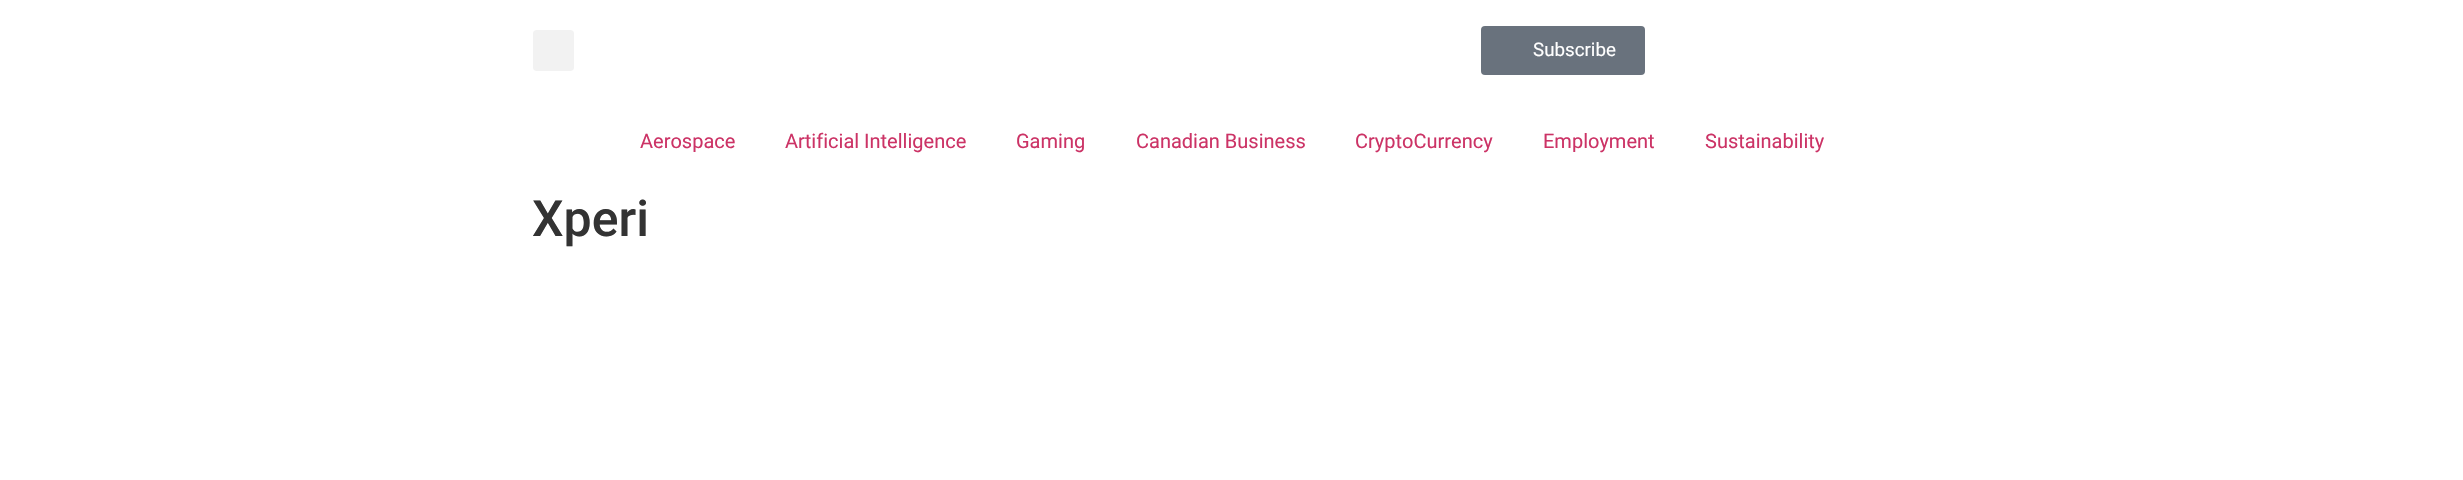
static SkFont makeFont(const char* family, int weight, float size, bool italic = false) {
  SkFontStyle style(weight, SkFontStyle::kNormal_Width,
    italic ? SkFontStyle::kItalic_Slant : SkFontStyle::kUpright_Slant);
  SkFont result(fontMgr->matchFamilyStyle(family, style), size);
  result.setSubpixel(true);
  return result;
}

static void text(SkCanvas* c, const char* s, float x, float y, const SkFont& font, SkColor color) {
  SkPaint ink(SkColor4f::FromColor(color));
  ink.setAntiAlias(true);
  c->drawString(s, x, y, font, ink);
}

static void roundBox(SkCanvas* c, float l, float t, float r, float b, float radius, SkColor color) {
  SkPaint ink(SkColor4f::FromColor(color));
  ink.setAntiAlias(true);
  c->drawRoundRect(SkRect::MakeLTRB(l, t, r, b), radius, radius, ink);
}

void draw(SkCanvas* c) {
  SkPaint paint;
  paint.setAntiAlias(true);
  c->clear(0xffffffff);
  roundBox(c, 533, 30, 574, 71, 4, 0xfff2f2f2);
  roundBox(c, 1481, 26, 1645, 75, 4, 0xff69727d);
  SkFont face1 = makeFont("Roboto", 400, 18.75f);
  text(c, "Subscribe", 1533, 56, face1, 0xffffffff);
  SkFont face2 = makeFont("Roboto", 400, 20);
  text(c, "Aerospace", 640, 148, face2, 0xffcc3366);
  text(c, "Artificial Intelligence", 785, 148, face2, 0xffcc3366);
  text(c, "Gaming", 1016, 148, face2, 0xffcc3366);
  text(c, "Canadian Business", 1136, 148, face2, 0xffcc3366);
  text(c, "CryptoCurrency", 1355, 148, face2, 0xffcc3366);
  text(c, "Employment", 1543, 148, face2, 0xffcc3366);
  text(c, "Sustainability", 1705, 148, face2, 0xffcc3366);
  SkFont face3 = makeFont("Roboto", 500, 50);
  text(c, "Xperi", 532, 236, face3, 0xff333333);
}
